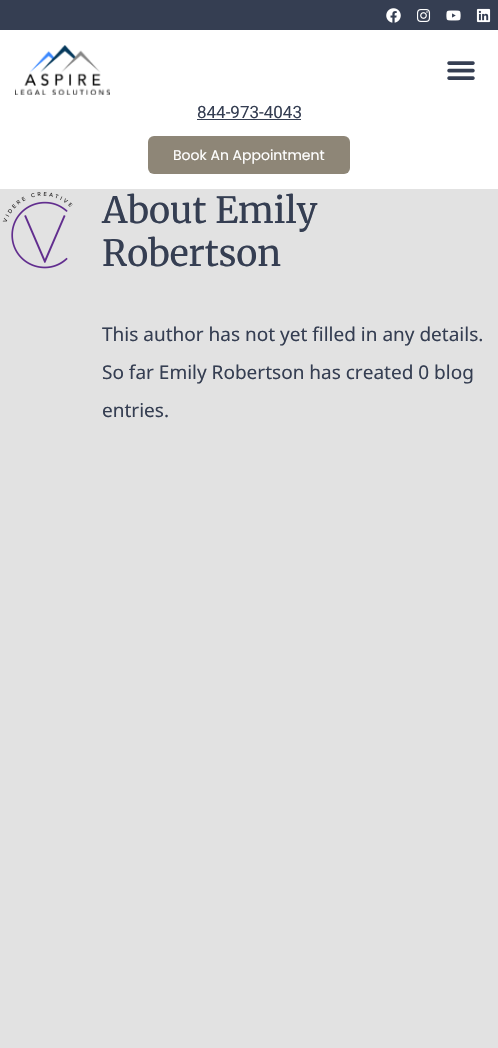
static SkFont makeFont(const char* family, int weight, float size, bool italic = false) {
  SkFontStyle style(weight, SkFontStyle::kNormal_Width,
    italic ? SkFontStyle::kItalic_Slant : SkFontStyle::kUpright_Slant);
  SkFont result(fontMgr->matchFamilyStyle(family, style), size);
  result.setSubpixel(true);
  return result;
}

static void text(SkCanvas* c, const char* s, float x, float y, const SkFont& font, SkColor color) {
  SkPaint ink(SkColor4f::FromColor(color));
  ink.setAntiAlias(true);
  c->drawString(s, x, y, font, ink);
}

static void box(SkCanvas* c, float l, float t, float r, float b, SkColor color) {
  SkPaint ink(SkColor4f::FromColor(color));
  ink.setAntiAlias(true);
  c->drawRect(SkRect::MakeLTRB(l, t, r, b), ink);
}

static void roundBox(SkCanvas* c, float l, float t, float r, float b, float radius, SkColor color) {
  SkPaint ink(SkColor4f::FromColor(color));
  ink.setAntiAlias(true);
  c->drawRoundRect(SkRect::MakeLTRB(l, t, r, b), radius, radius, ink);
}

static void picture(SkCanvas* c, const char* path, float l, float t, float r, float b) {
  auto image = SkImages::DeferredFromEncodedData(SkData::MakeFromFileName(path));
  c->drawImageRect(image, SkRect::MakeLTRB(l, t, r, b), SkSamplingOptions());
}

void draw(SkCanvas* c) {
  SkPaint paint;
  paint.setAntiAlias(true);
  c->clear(0xffe2e2e2);
  box(c, 0, 30, 498, 189, 0xffffffff);
  box(c, 0, 0, 498, 30, 0xff353e52);
  picture(c, "img_01.png", 386, 8, 401, 23);
  picture(c, "img_02.png", 417, 9, 431, 22);
  picture(c, "img_03.png", 446, 10, 461, 21);
  picture(c, "img_04.png", 476, 8, 491, 23);
  picture(c, "img_05.png", 15, 45, 110, 95);
  picture(c, "img_06.png", 447, 61, 475, 80);
  SkFont face1 = makeFont("Roboto", 400, 17);
  text(c, "844-973-4043", 197, 118, face1, 0xff353e52);
  box(c, 197, 119, 301, 120, 0xff353e52);
  roundBox(c, 148, 136, 350, 174, 6, 0xff8e8677);
  SkFont face2 = makeFont("Poppins", 400, 14);
  text(c, "Book An Appointment", 173, 160, face2, 0xffffffff);
  picture(c, "img_07.png", 2, 192, 73, 269);
  SkFont face3 = makeFont("Merriweather", 300, 36);
  text(c, "About Emily", 102, 223, face3, 0xff353e52);
  text(c, "Robertson", 102, 266, face3, 0xff353e52);
  SkFont face4 = makeFont("Noto Sans", 400, 19);
  text(c, "This author has not yet filled in any details.", 102, 341, face4, 0xff353e52);
  text(c, "So far Emily Robertson has created 0 blog", 102, 379, face4, 0xff353e52);
  text(c, "entries.", 102, 417, face4, 0xff353e52);
}
